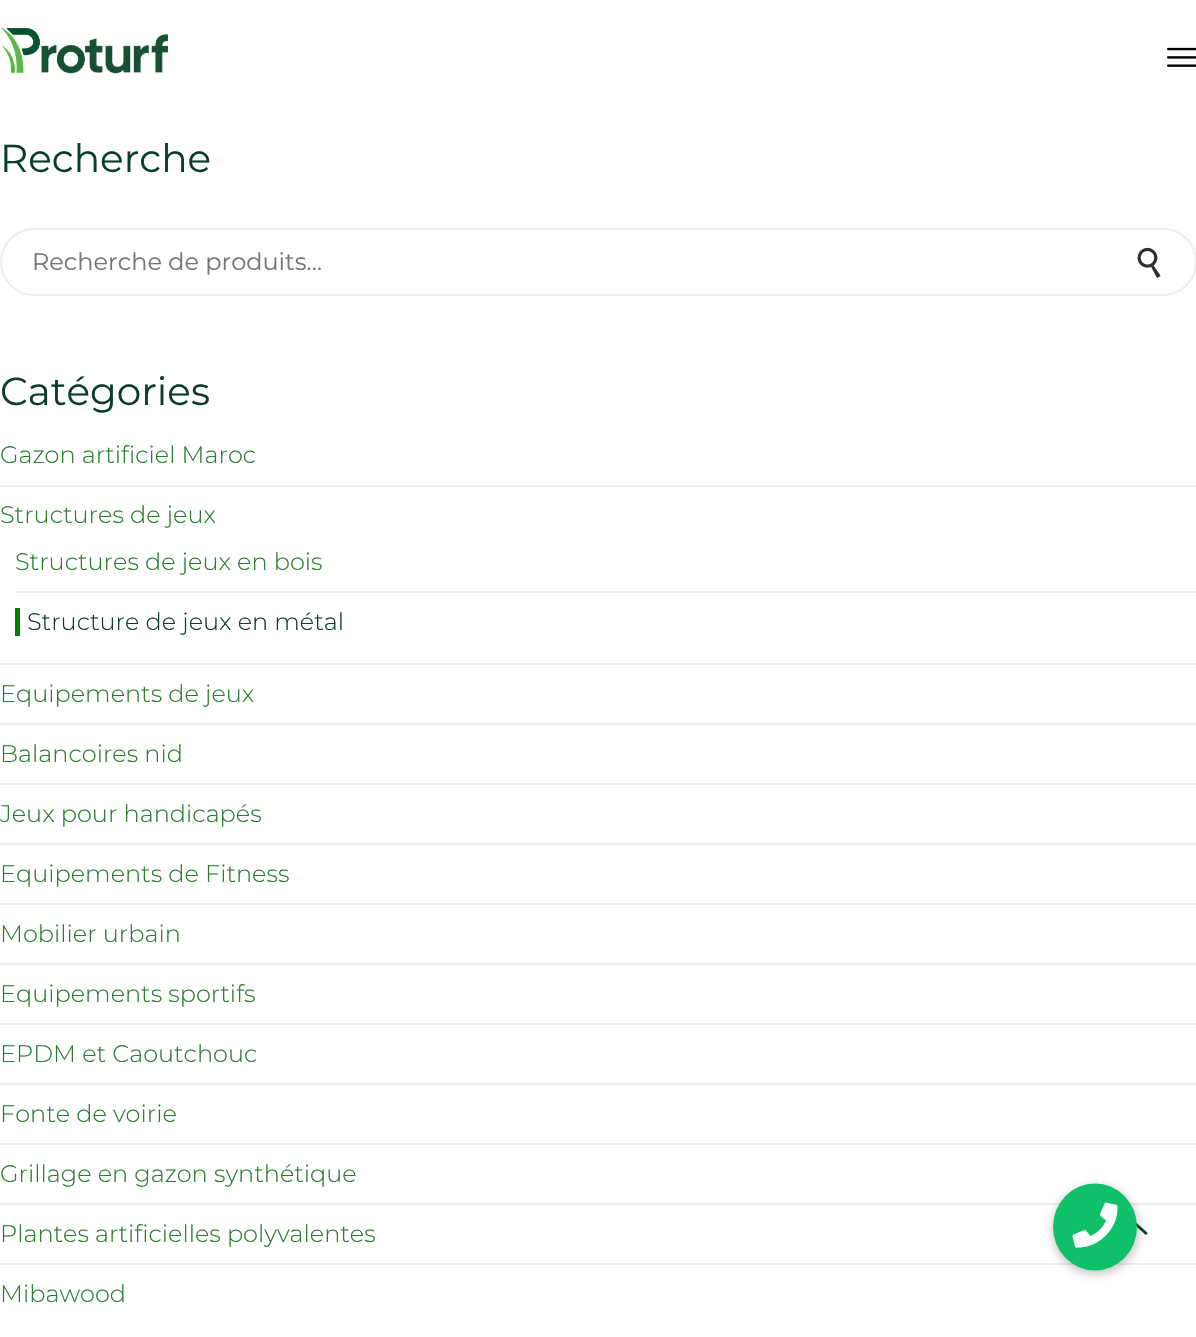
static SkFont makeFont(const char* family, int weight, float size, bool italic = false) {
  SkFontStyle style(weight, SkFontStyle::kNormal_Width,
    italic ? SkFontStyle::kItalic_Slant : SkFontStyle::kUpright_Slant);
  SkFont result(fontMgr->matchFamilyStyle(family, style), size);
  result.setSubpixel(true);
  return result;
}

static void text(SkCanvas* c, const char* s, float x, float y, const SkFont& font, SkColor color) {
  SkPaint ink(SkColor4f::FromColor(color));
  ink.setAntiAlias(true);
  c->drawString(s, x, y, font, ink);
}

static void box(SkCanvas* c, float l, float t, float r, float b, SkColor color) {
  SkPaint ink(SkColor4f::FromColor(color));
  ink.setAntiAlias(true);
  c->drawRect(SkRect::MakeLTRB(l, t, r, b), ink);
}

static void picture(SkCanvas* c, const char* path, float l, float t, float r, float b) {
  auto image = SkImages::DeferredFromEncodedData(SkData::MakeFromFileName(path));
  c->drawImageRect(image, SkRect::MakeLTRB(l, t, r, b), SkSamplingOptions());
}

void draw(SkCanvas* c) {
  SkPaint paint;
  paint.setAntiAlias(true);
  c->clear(0xffffffff);
  picture(c, "img_01.png", 0, 27, 168, 74);
  picture(c, "img_02.png", 1167, 47, 1196, 67);
  SkFont face1 = makeFont("Montserrat", 400, 39);
  text(c, "Recherche", 0, 172, face1, 0xff0b3d2c);
  paint.setStyle(SkPaint::kStroke_Style);
  paint.setStrokeWidth(2);
  paint.setColor(0xffededed);
  c->drawRoundRect(SkRect::MakeLTRB(1, 229, 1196, 295), 33, 33, paint);
  SkFont face2 = makeFont("Montserrat", 400, 24);
  text(c, "Recherche de produits…", 32, 270, face2, 0xff757575);
  picture(c, "img_03.png", 1137, 247, 1161, 278);
  text(c, "Catégories", 0, 405, face1, 0xff0b3d2c);
  box(c, 0, 485, 1196, 487, 0xffeeeeee);
  SkFont face3 = makeFont("Montserrat", 300, 24);
  text(c, "Gazon artificiel Maroc", 0, 463, face3, 0xff2a7d2e);
  box(c, 0, 663, 1196, 665, 0xffeeeeee);
  text(c, "Structures de jeux", 0, 523, face3, 0xff2a7d2e);
  box(c, 15, 591, 1196, 593, 0xffeeeeee);
  text(c, "Structures de jeux en bois", 15, 570, face3, 0xff2a7d2e);
  box(c, 15, 608, 20, 636, 0xff008000);
  text(c, "Structure de jeux en métal", 27, 630, face3, 0xff0b3d2c);
  box(c, 0, 723, 1196, 725, 0xffeeeeee);
  text(c, "Equipements de jeux", 0, 702, face3, 0xff2a7d2e);
  box(c, 0, 783, 1196, 785, 0xffeeeeee);
  text(c, "Balancoires nid", 0, 762, face3, 0xff2a7d2e);
  box(c, 0, 843, 1196, 845, 0xffeeeeee);
  text(c, "Jeux pour handicapés", 0, 822, face3, 0xff2a7d2e);
  box(c, 0, 903, 1196, 905, 0xffeeeeee);
  text(c, "Equipements de Fitness", 0, 882, face3, 0xff2a7d2e);
  box(c, 0, 963, 1196, 965, 0xffeeeeee);
  text(c, "Mobilier urbain", 0, 942, face3, 0xff2a7d2e);
  box(c, 0, 1023, 1196, 1025, 0xffeeeeee);
  text(c, "Equipements sportifs", 0, 1002, face3, 0xff2a7d2e);
  box(c, 0, 1083, 1196, 1085, 0xffeeeeee);
  text(c, "EPDM et Caoutchouc", 0, 1062, face3, 0xff2a7d2e);
  box(c, 0, 1143, 1196, 1145, 0xffeeeeee);
  text(c, "Fonte de voirie", 0, 1122, face3, 0xff2a7d2e);
  box(c, 0, 1203, 1196, 1205, 0xffeeeeee);
  text(c, "Grillage en gazon synthétique", 0, 1182, face3, 0xff2a7d2e);
  box(c, 0, 1263, 1196, 1265, 0xffeeeeee);
  text(c, "Plantes artificielles polyvalentes", 0, 1242, face3, 0xff2a7d2e);
  text(c, "Mibawood", 0, 1302, face3, 0xff2a7d2e);
  picture(c, "img_05.png", 1136, 1222, 1148, 1235);
  paint.setStyle(SkPaint::kFill_Style);
  paint.setColor(0x33000000);
  paint.setMaskFilter(SkMaskFilter::MakeBlur(kNormal_SkBlurStyle, 4.5f));
  c->drawRoundRect(SkRect::MakeLTRB(1052, 1185, 1139, 1275), 43.5f, 43.5f, paint);
  paint.setMaskFilter(nullptr);
  paint.setColor(0xff0fc069);
  c->drawOval(SkRect::MakeLTRB(1053, 1183.5f, 1137, 1270.5f), paint);
  picture(c, "img_04.png", 1072, 1202, 1118, 1248);
}
